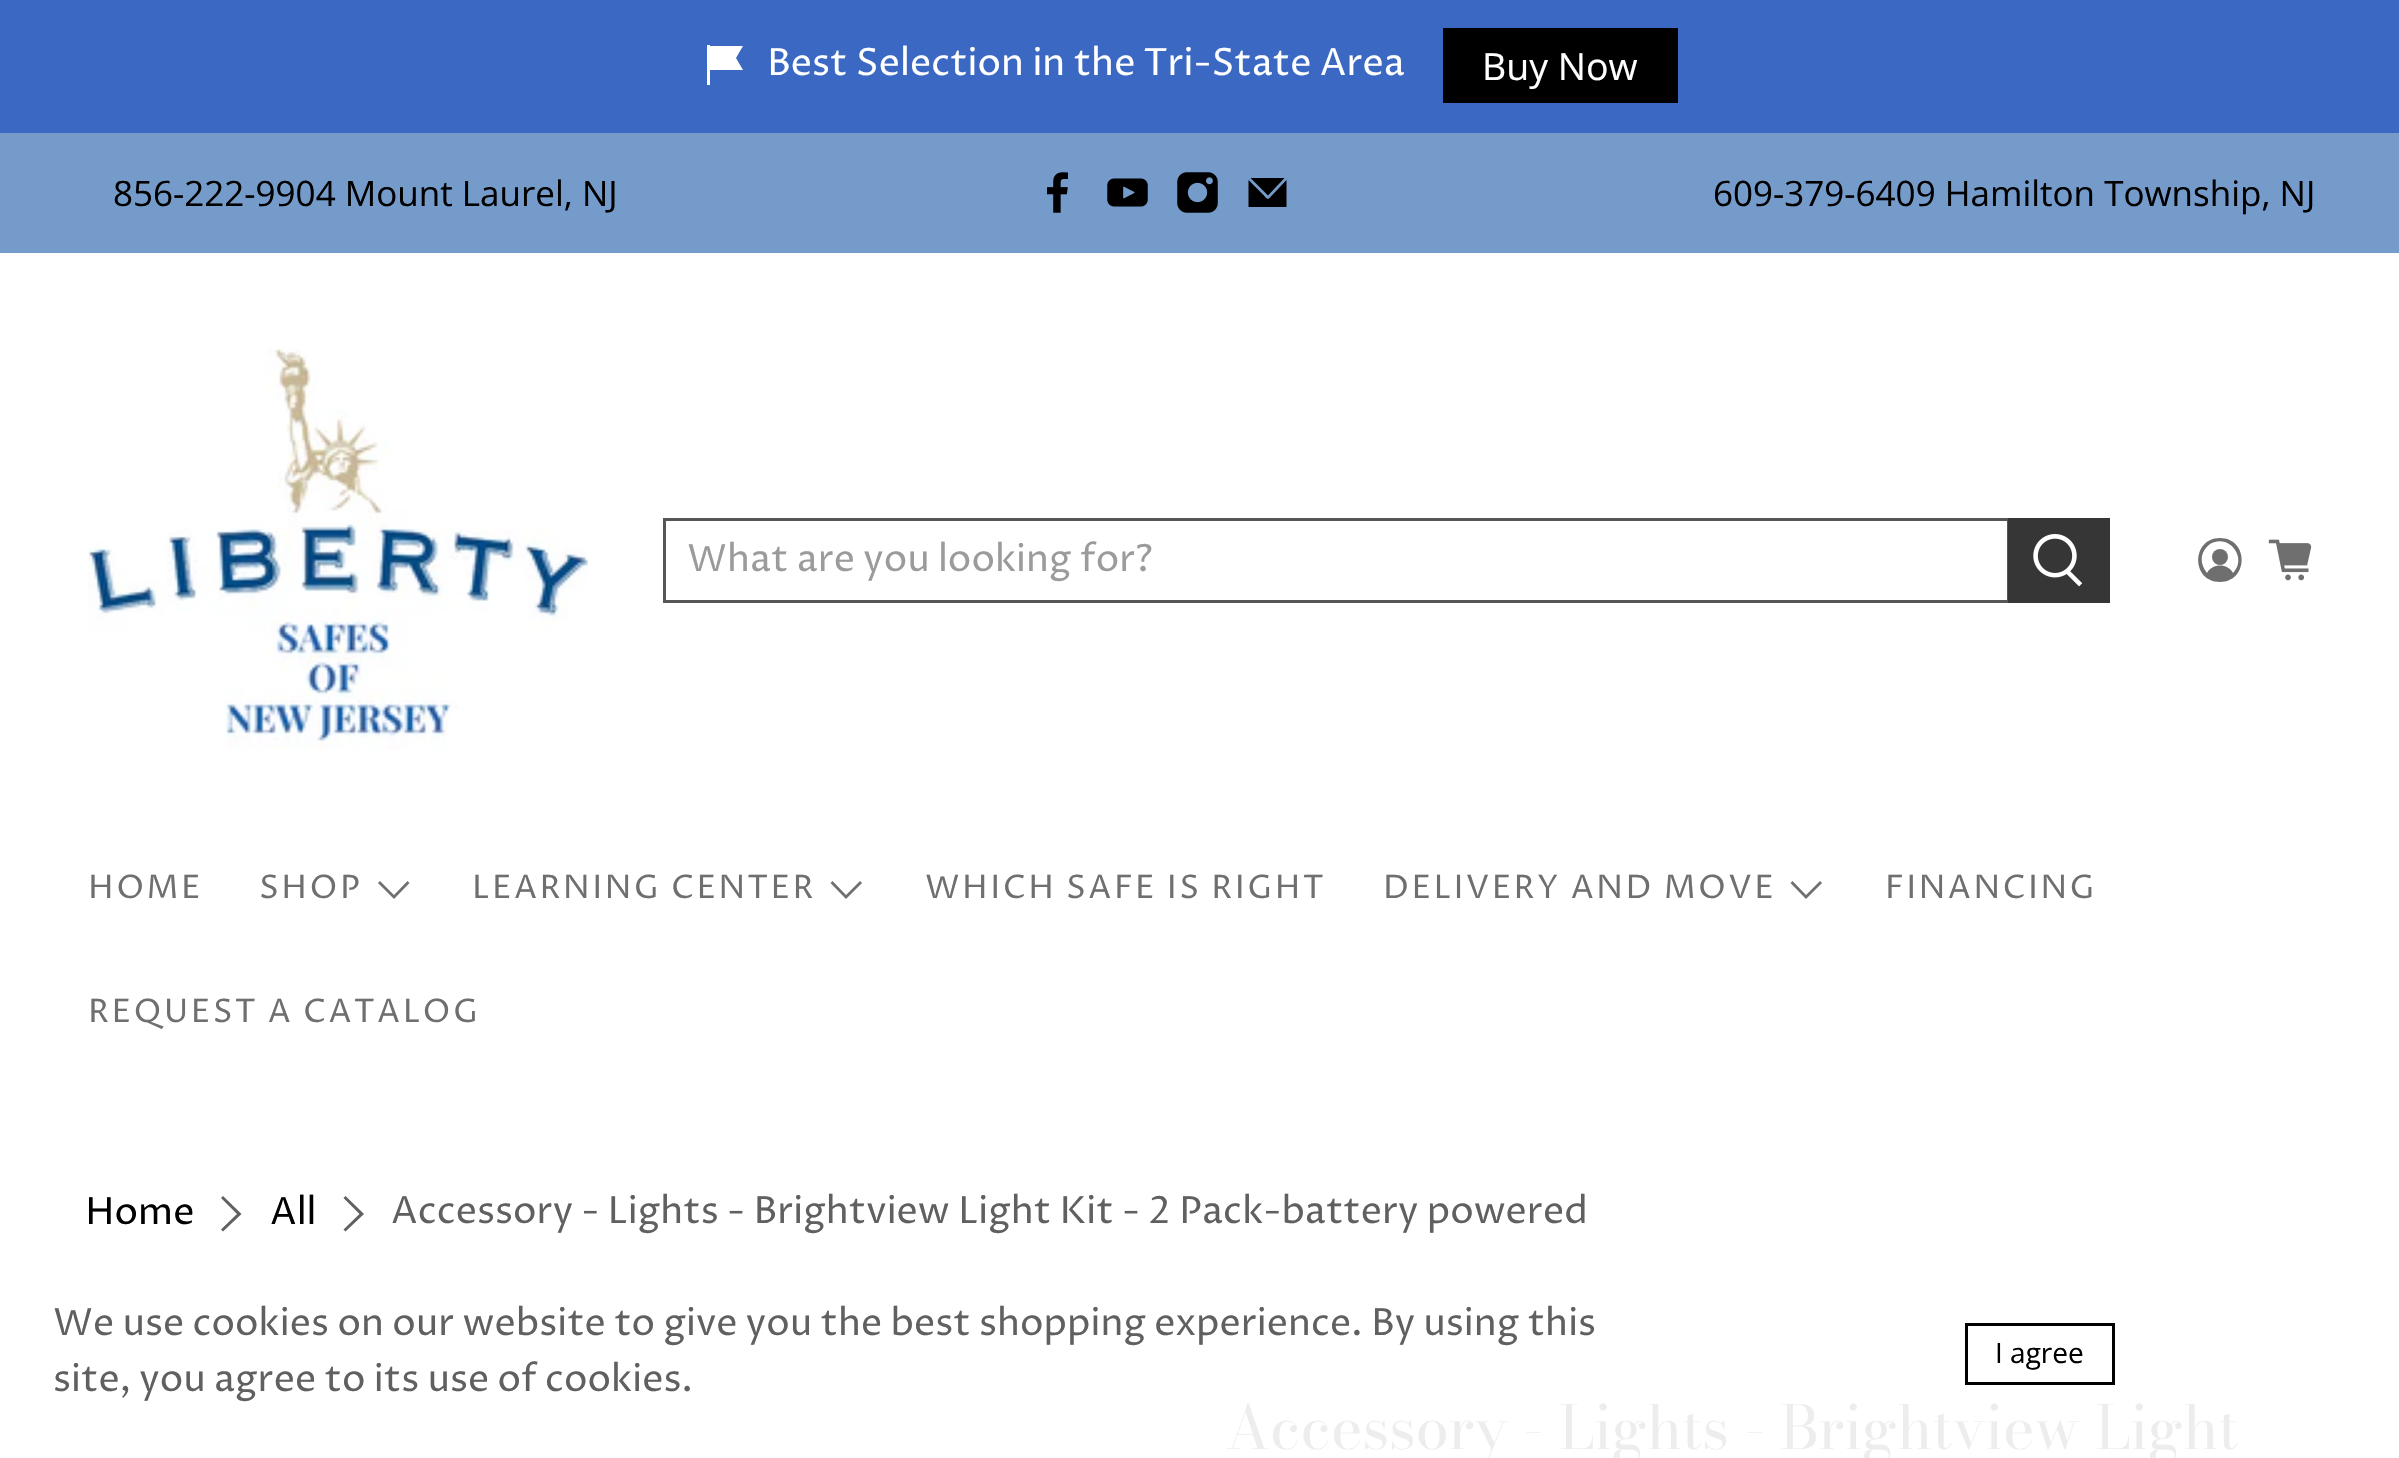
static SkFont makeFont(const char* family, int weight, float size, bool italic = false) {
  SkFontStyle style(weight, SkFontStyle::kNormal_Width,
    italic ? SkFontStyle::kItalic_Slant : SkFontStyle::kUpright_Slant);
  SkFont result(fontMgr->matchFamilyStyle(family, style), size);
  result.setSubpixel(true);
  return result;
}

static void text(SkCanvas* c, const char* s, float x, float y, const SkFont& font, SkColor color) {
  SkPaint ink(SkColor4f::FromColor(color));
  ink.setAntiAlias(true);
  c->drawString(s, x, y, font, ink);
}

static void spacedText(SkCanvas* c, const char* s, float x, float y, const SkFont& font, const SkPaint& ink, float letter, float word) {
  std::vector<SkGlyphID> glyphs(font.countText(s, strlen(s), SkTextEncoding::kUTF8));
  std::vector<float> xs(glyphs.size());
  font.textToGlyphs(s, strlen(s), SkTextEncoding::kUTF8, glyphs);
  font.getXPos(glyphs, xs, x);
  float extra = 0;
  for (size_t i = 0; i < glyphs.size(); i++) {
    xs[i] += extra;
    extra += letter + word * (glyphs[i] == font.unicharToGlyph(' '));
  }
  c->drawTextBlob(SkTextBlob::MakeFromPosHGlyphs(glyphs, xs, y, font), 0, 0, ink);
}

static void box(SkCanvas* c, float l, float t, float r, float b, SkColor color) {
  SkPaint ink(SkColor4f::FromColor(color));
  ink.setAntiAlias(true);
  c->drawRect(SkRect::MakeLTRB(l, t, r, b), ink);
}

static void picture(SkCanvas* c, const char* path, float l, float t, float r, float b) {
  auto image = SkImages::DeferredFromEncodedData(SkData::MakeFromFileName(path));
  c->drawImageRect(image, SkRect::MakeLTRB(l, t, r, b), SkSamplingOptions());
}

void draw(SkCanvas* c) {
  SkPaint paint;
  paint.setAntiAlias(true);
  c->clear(0xffffffff);
  box(c, 0, 0, 2399, 133, 0xff3a68c2);
  paint.setColor(0xffffffff);
  c->drawPath(SkPathBuilder().moveTo(736, 58).lineTo(743, 46).lineTo(710, 46).lineTo(710, 45).lineTo(707, 45).lineTo(707, 85).lineTo(710, 85).lineTo(710, 70).lineTo(743, 70).close().detach(), paint);
  SkFont face1 = makeFont("Proza Libre", 400, 37.5f);
  text(c, "Best Selection in the Tri-State Area", 767, 75, face1, 0xffffffff);
  box(c, 1443, 28, 1678, 103, 0xff000000);
  SkFont face2 = makeFont("Open Sans", 400, 37.5f);
  text(c, "Buy Now", 1482, 80, face2, 0xffffffff);
  box(c, 0, 133, 2399, 253, 0xff749bca);
  SkFont face3 = makeFont("Open Sans", 400, 35);
  text(c, "856-222-9904 Mount Laurel, NJ", 113, 206, face3, 0xff000000);
  picture(c, "img_01.png", 1047, 172, 1068, 213);
  picture(c, "img_02.png", 1107, 178, 1148, 207);
  picture(c, "img_03.png", 1177, 172, 1218, 213);
  paint.setColor(0xff000000);
  c->drawPath(SkPathBuilder().moveTo(1269, 198.5f).cubicTo(1267, 200, 1264, 195.5f, 1264, 195.5f).lineTo(1248.5f, 180).lineTo(1248.5f, 207).lineTo(1286.5f, 207).lineTo(1286.5f, 180).close().detach(), paint);
  c->drawPath(SkPathBuilder().moveTo(1284.5f, 178).lineTo(1250.5f, 178).lineTo(1268, 195.5f).close().detach(), paint);
  text(c, "609-379-6409 Hamilton Township, NJ", 1713, 206, face3, 0xff000000);
  picture(c, "img_04.png", 87, 348, 588, 750);
  paint.setStyle(SkPaint::kStroke_Style);
  paint.setStrokeWidth(3);
  paint.setColor(0xff565656);
  c->drawRect(SkRect::MakeLTRB(664.5f, 519.5f, 2008.5f, 601.5f), paint);
  text(c, "What are you looking for?", 687, 571, face1, 0xff9b9b9b);
  box(c, 2008, 518, 2110, 603, 0xff363636);
  picture(c, "img_05.png", 2033, 534, 2083, 587);
  paint.setStyle(SkPaint::kFill_Style);
  paint.setColor(0xff6f6f6f);
  c->drawCircle(2220, 557, 8, paint);
  c->drawPath(SkPathBuilder().moveTo(2220, 538).cubicTo(2191, 538, 2191, 582, 2220, 582).cubicTo(2249, 582, 2249, 538, 2220, 538).close().moveTo(2233, 573).cubicTo(2228, 563, 2212, 563, 2207, 573).cubicTo(2203, 568, 2201, 562, 2202, 556).cubicTo(2203, 551, 2206, 547, 2210, 544).cubicTo(2229, 533, 2248, 558, 2233, 573).close().detach(), paint);
  picture(c, "img_06.png", 2268, 539, 2312, 581);
  SkFont face4 = makeFont("Proza Libre", 400, 32.5f);
  spacedText(c, "HOME", 88, 898, face4, paint, 2.5f, 0);
  spacedText(c, "SHOP", 259, 898, face4, paint, 2.5f, 0);
  c->drawPath(SkPathBuilder().moveTo(394, 899).lineTo(378, 883).lineTo(380, 881).lineTo(394, 895).lineTo(407.5f, 881).lineTo(409.5f, 883).close().detach(), paint);
  spacedText(c, "LEARNING CENTER", 472, 898, face4, paint, 2.5f, 0);
  c->drawPath(SkPathBuilder().moveTo(846, 899).lineTo(830.5f, 883).lineTo(832.5f, 881).lineTo(846, 895).lineTo(860, 881).lineTo(862, 883).close().detach(), paint);
  spacedText(c, "WHICH SAFE IS RIGHT", 925, 898, face4, paint, 2.5f, 0);
  spacedText(c, "DELIVERY AND MOVE", 1383, 898, face4, paint, 2.5f, 0);
  c->drawPath(SkPathBuilder().moveTo(1806, 899).lineTo(1790.5f, 883).lineTo(1792.5f, 881).lineTo(1806, 895).lineTo(1820, 881).lineTo(1822, 883).close().detach(), paint);
  spacedText(c, "FINANCING", 1885, 898, face4, paint, 2.5f, 0);
  spacedText(c, "REQUEST A CATALOG", 88, 1022, face4, paint, 2.5f, 0);
  text(c, "Home", 85, 1224, face1, 0xff000000);
  paint.setColor(0xff606060);
  c->drawPath(SkPathBuilder().moveTo(223, 1231.5f).lineTo(221, 1229.5f).lineTo(237, 1214).lineTo(221, 1198).lineTo(223, 1196).lineTo(241.5f, 1214).close().detach(), paint);
  text(c, "All", 270, 1224, face1, 0xff000000);
  c->drawPath(SkPathBuilder().moveTo(345.5f, 1231.5f).lineTo(343.5f, 1229.5f).lineTo(359.5f, 1214).lineTo(343.5f, 1198).lineTo(345.5f, 1196).lineTo(364, 1214).close().detach(), paint);
  text(c, "Accessory - Lights - Brightview Light Kit - 2 Pack-battery powered", 391, 1223, face1, 0xff606060);
  SkFont face5 = makeFont("Bodoni Moda", 400, 60);
  text(c, "Accessory - Lights - Brightview Light", 1225, 1449, face5, 0xffededed);
  text(c, "We use cookies on our website to give you the best shopping experience. By using this", 53, 1335, face1, 0xff606060);
  text(c, "site, you agree to its use of cookies.", 53, 1391, face1, 0xff606060);
  paint.setStyle(SkPaint::kStroke_Style);
  paint.setColor(0xff000000);
  c->drawRect(SkRect::MakeLTRB(1966.5f, 1324.5f, 2113.5f, 1383.5f), paint);
  SkFont face6 = makeFont("Open Sans", 400, 28);
  text(c, "I agree", 1995, 1363, face6, 0xff000000);
}
